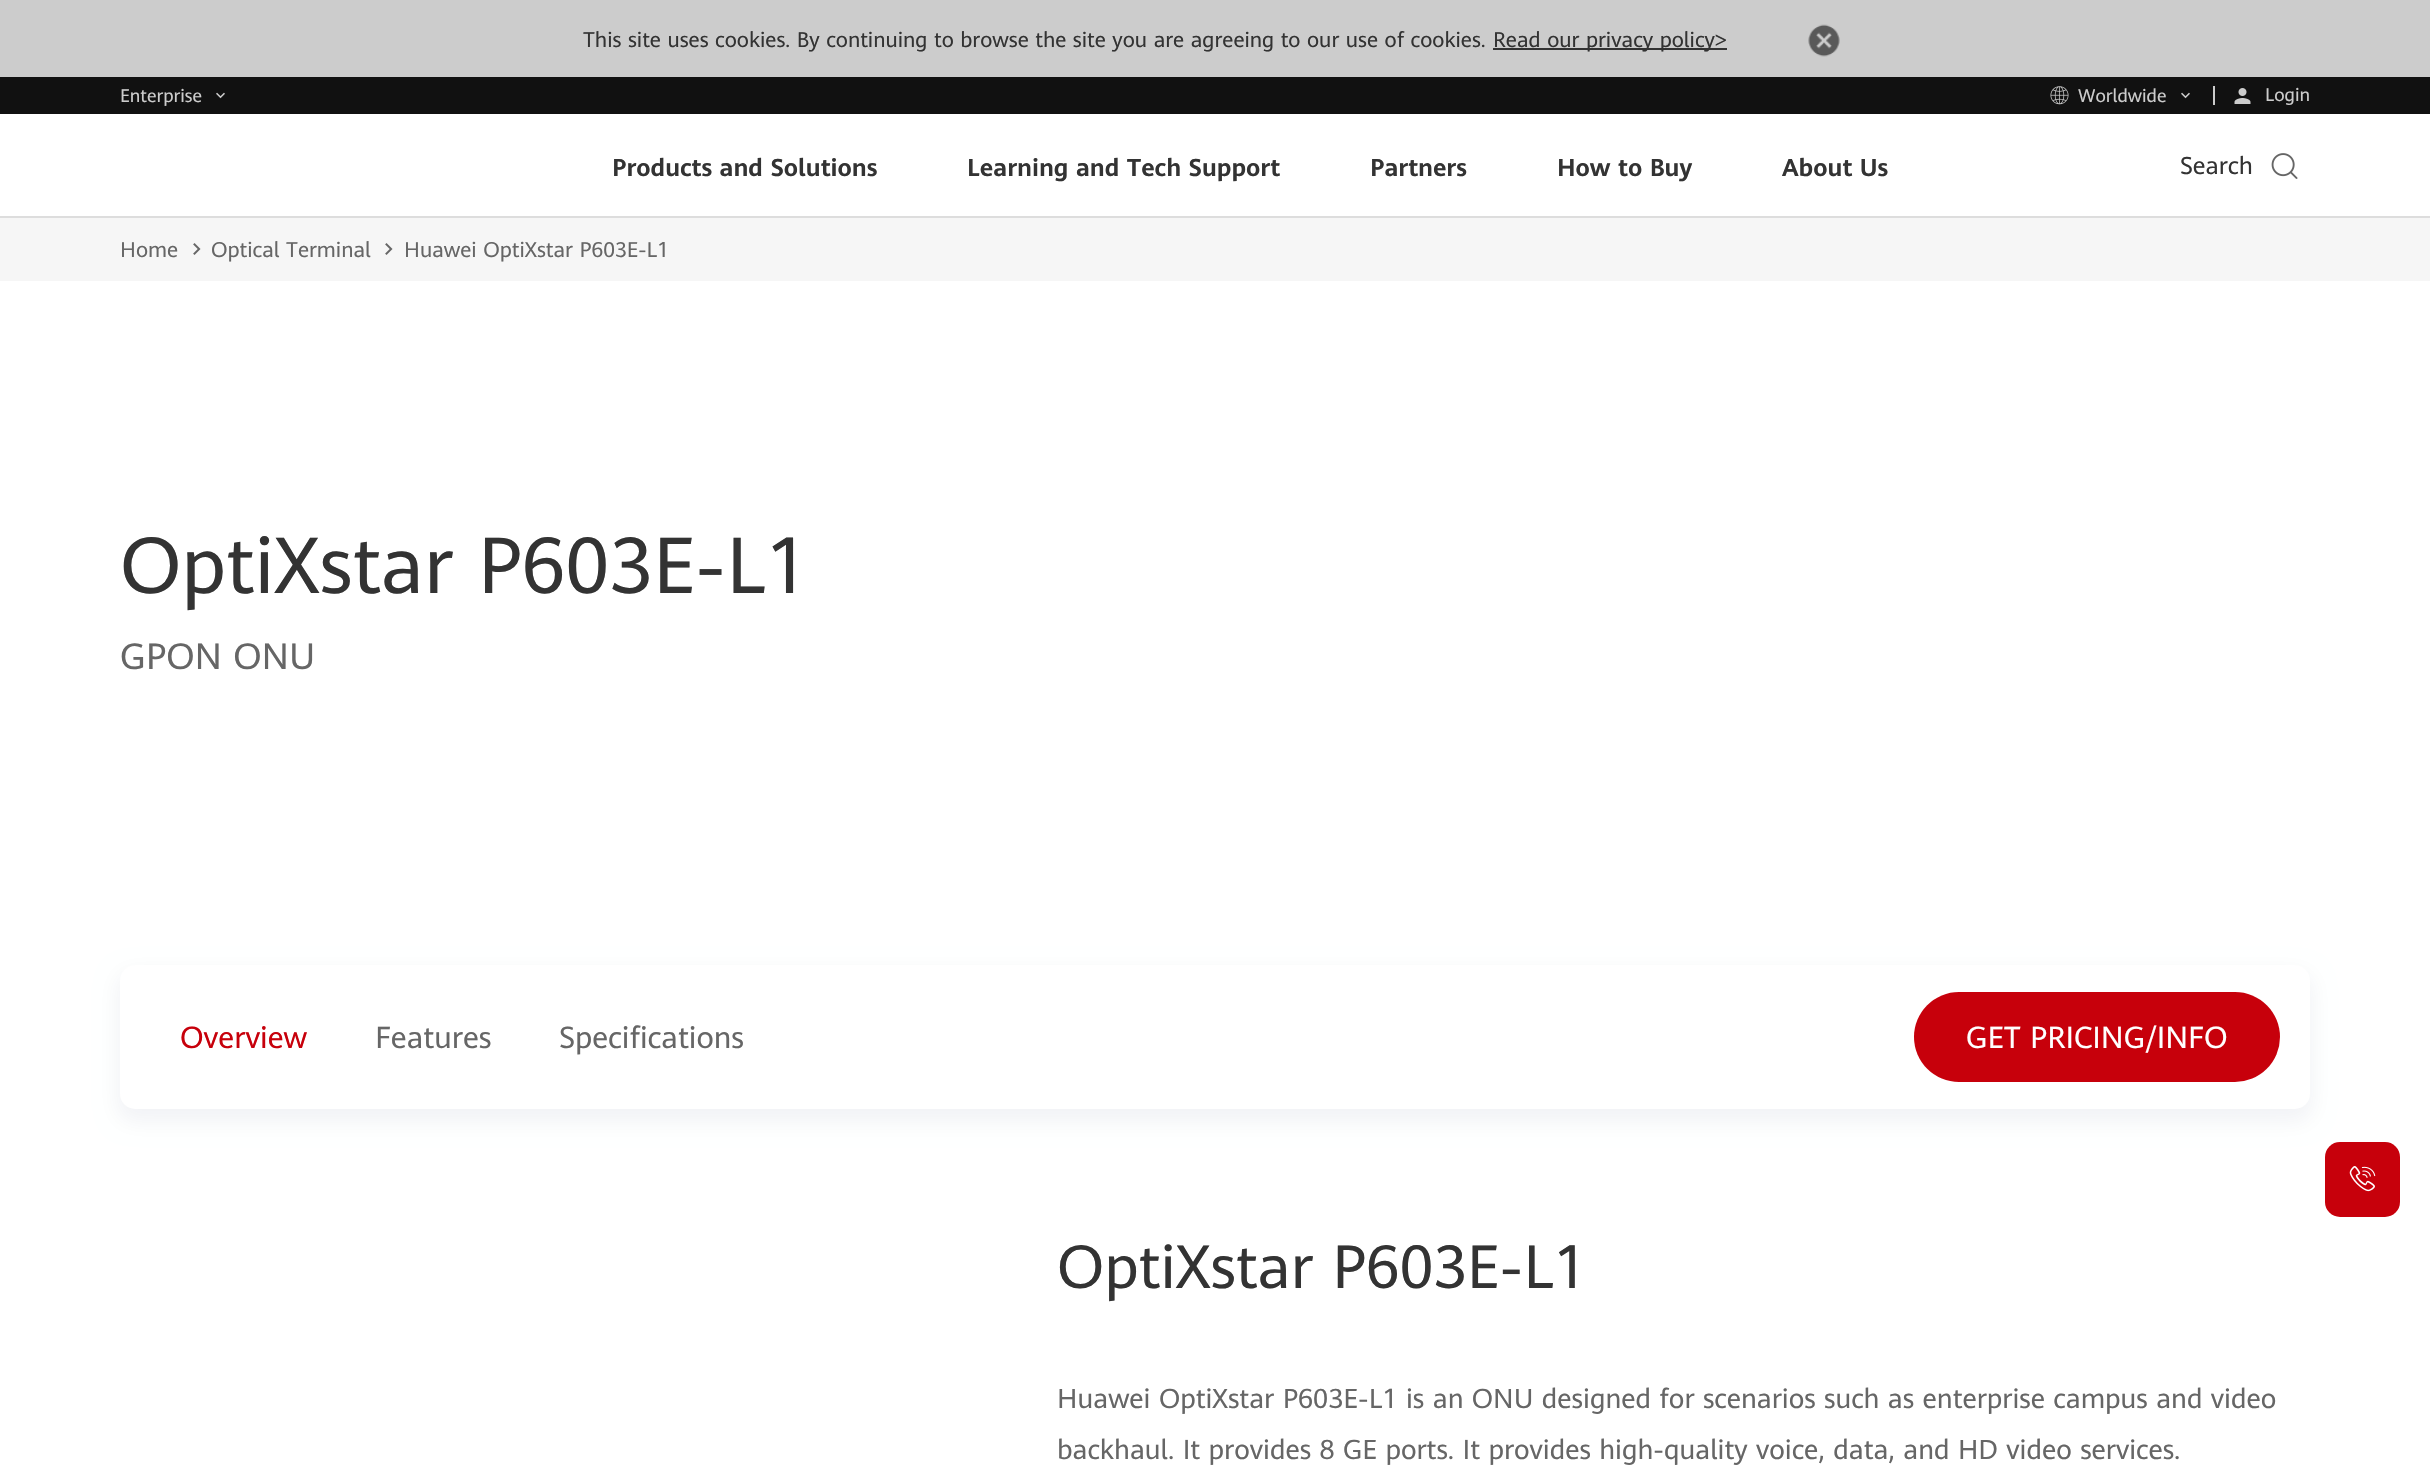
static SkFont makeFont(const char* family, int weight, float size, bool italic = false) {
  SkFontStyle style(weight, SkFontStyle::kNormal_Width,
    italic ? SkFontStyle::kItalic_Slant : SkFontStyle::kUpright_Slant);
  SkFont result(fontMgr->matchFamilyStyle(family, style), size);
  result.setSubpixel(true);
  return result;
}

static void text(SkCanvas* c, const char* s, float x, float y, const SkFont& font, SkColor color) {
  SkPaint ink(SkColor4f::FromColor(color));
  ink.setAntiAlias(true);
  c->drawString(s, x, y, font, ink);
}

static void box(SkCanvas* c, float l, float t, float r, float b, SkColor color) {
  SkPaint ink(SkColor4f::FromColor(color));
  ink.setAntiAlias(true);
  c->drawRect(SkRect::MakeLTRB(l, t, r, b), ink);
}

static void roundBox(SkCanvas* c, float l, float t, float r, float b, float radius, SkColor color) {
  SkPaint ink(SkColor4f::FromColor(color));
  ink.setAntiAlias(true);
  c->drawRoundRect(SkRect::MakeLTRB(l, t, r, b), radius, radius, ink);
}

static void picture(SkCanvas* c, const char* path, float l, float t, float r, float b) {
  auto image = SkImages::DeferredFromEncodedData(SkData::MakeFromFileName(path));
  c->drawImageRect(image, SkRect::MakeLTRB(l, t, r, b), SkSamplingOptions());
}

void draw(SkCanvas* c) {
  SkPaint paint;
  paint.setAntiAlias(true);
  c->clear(0xffffffff);
  box(c, 0, 0, 2430, 77, 0xffcccccc);
  SkFont face1 = makeFont("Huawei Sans", 400, 21);
  text(c, "This site uses cookies. By continuing to browse the site you are agreeing to our use of cookies.", 583, 47, face1, 0xff333333);
  box(c, 1493, 48, 1727, 50, 0xff333333);
  text(c, "Read our privacy policy>", 1493, 47, face1, 0xff333333);
  picture(c, "img_01.png", 1808, 24, 1840, 57);
  box(c, 0, 77, 2430, 114, 0xff111111);
  SkFont face2 = makeFont("Huawei Sans", 400, 18);
  text(c, "Enterprise", 120, 102, face2, 0xffcccccc);
  picture(c, "img_02.png", 216, 92, 225, 99);
  picture(c, "img_03.png", 2050, 86, 2069, 105);
  text(c, "Worldwide", 2078, 102, face2, 0xffcccccc);
  picture(c, "img_02.png", 2181, 92, 2190, 99);
  box(c, 2213, 86, 2215, 105, 0xffcccccc);
  picture(c, "img_04.png", 2234, 88, 2251, 104);
  text(c, "Login", 2265, 101, face2, 0xffcccccc);
  box(c, 0, 216, 2430, 218, 0xffdddddd);
  SkFont face3 = makeFont("Huawei Sans", 700, 24);
  text(c, "Products and Solutions", 612, 176, face3, 0xff333333);
  text(c, "Learning and Tech Support", 967, 176, face3, 0xff333333);
  text(c, "Partners", 1370, 176, face3, 0xff333333);
  text(c, "How to Buy", 1557, 176, face3, 0xff333333);
  text(c, "About Us", 1782, 176, face3, 0xff333333);
  SkFont face4 = makeFont("Huawei Sans", 400, 24);
  text(c, "Search", 2180, 174, face4, 0xff333333);
  picture(c, "img_05.png", 2271, 153, 2298, 179);
  box(c, 0, 218, 2430, 281, 0xfff6f6f6);
  text(c, "Home", 120, 257, face1, 0xff666666);
  picture(c, "img_06.png", 193, 243, 201, 255);
  text(c, "Optical Terminal", 211, 257, face1, 0xff666666);
  picture(c, "img_06.png", 385, 243, 393, 255);
  text(c, "Huawei OptiXstar P603E-L1", 404, 257, face1, 0xff666666);
  SkFont face5 = makeFont("Huawei Sans", 400, 78);
  text(c, "OptiXstar P603E-L1", 120, 593, face5, 0xff333333);
  SkFont face6 = makeFont("Huawei Sans", 400, 36);
  text(c, "GPON ONU", 120, 669, face6, 0xff666666);
  paint.setColor(0x0d000f4f);
  paint.setMaskFilter(SkMaskFilter::MakeBlur(kNormal_SkBlurStyle, 10.5f));
  c->drawRoundRect(SkRect::MakeLTRB(117, 972, 2313, 1122), 18, 18, paint);
  paint.setMaskFilter(nullptr);
  roundBox(c, 120, 965, 2310, 1109, 15, 0xffffffff);
  SkFont face7 = makeFont("Huawei Sans", 400, 30);
  text(c, "Overview", 180, 1048, face7, 0xffc7000b);
  text(c, "Features", 375, 1048, face7, 0xff666666);
  text(c, "Specifications", 559, 1048, face7, 0xff666666);
  roundBox(c, 1914, 992, 2280, 1082, 45, 0xffc7000b);
  text(c, "GET PRICING/INFO", 1966, 1048, face7, 0xffffffff);
  roundBox(c, 2325, 1142, 2400, 1217, 15, 0xffc7000b);
  picture(c, "img_07.png", 2349, 1166, 2376, 1192);
  SkFont face8 = makeFont("Huawei Sans", 400, 60);
  text(c, "OptiXstar P603E-L1", 1057, 1288, face8, 0xff333333);
  SkFont face9 = makeFont("Huawei Sans", 400, 27);
  text(c, "Huawei OptiXstar P603E-L1 is an ONU designed for scenarios such as enterprise campus and video", 1057, 1408, face9, 0xff666666);
  text(c, "backhaul. It provides 8 GE ports. It provides high-quality voice, data, and HD video services.", 1057, 1459, face9, 0xff666666);
}
